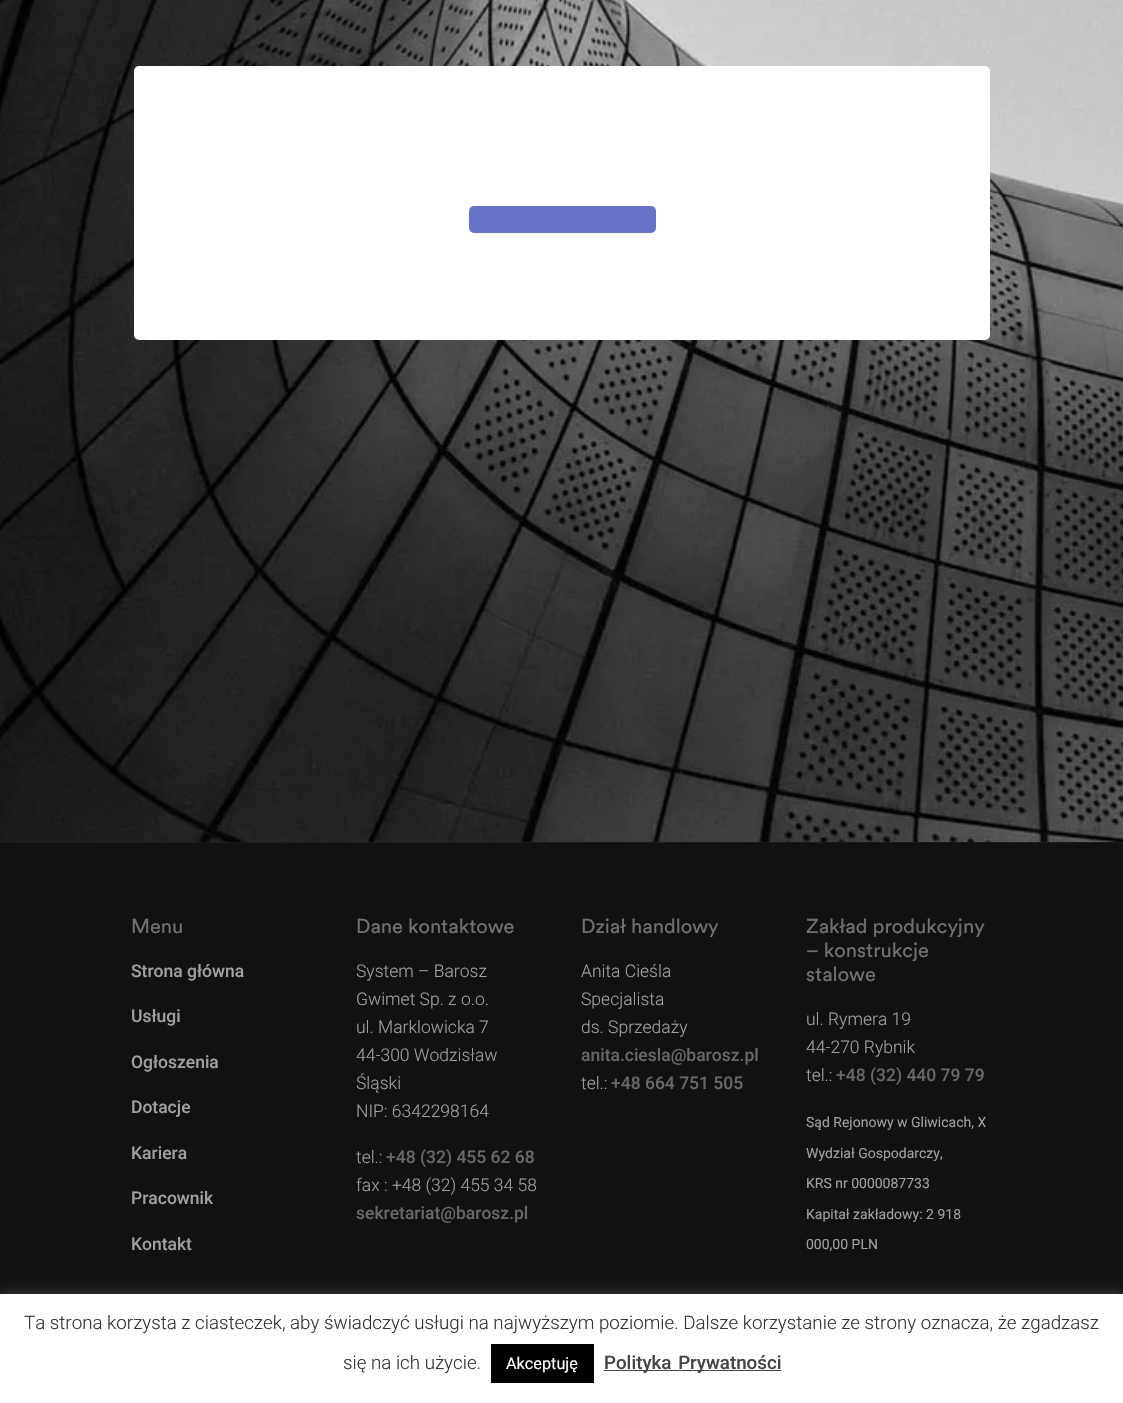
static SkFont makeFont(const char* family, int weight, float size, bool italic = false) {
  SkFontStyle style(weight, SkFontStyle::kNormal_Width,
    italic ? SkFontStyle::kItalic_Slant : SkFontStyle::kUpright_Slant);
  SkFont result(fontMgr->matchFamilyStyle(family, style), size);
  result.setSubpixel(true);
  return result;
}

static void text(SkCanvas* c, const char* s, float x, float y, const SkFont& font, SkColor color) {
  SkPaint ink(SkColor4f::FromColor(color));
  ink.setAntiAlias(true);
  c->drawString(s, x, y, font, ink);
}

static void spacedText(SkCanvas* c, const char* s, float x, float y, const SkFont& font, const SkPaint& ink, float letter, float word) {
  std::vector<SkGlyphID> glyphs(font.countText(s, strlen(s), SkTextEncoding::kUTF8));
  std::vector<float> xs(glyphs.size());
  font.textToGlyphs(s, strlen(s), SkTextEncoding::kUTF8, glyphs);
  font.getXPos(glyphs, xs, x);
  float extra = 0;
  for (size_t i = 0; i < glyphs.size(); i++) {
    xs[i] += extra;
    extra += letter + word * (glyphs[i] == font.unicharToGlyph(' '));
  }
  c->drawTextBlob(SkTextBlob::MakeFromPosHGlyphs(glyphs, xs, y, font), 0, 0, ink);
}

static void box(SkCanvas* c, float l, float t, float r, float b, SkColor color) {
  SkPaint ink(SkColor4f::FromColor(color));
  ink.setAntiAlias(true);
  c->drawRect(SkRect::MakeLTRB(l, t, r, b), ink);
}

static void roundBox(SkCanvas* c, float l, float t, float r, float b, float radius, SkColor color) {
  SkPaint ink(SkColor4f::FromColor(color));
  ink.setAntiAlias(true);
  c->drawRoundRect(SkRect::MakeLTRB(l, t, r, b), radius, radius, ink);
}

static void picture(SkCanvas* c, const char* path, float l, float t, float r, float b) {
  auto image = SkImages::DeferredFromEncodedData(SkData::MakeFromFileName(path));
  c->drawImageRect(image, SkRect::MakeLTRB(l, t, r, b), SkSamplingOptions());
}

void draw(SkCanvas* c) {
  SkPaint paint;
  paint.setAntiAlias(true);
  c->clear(0xff1b1b1b);
  picture(c, "img_01.png", 0, 0, 1123, 842);
  roundBox(c, 134, 66, 990, 340, 5, 0xffffffff);
  roundBox(c, 469, 206, 656, 233, 5, 0xff6673c7);
  box(c, 0, 843, 1123, 1294, 0xff111111);
  SkFont face1 = makeFont("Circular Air", 400, 20);
  text(c, "Menu", 131, 933, face1, 0xff707070);
  SkFont face2 = makeFont("Roboto", 500, 17.5f);
  text(c, "Strona główna", 131, 977, face2, 0xffa0a0a0);
  text(c, "Usługi", 131, 1022, face2, 0xffa0a0a0);
  text(c, "Ogłoszenia", 131, 1068, face2, 0xffa0a0a0);
  text(c, "Dotacje", 131, 1113, face2, 0xffa0a0a0);
  text(c, "Kariera", 131, 1159, face2, 0xffa0a0a0);
  text(c, "Pracownik", 131, 1204, face2, 0xffa0a0a0);
  text(c, "Kontakt", 131, 1250, face2, 0xffa0a0a0);
  text(c, "Dane kontaktowe", 356, 933, face1, 0xff707070);
  SkFont face3 = makeFont("Roboto", 300, 17.5f);
  text(c, "System – Barosz", 356, 977, face3, 0xffa0a0a0);
  text(c, "Gwimet Sp. z o.o.", 356, 1005, face3, 0xffa0a0a0);
  text(c, "ul. Marklowicka 7", 356, 1033, face3, 0xffa0a0a0);
  text(c, "44-300 Wodzisław", 356, 1061, face3, 0xffa0a0a0);
  text(c, "Śląski", 356, 1089, face3, 0xffa0a0a0);
  text(c, "NIP: 6342298164", 356, 1117, face3, 0xffa0a0a0);
  text(c, "tel.:", 356, 1163, face3, 0xffa0a0a0);
  text(c, "+48 (32) 455 62 68", 386, 1163, face2, 0xff676767);
  text(c, "fax : +48 (32) 455 34 58", 356, 1191, face3, 0xffa0a0a0);
  text(c, "sekretariat@barosz.pl", 356, 1219, face2, 0xff676767);
  text(c, "Dział handlowy", 581, 933, face1, 0xff707070);
  text(c, "Anita Cieśla", 581, 977, face3, 0xffa0a0a0);
  text(c, "Specjalista", 581, 1005, face3, 0xffa0a0a0);
  text(c, "ds. Sprzedaży", 581, 1033, face3, 0xffa0a0a0);
  text(c, "anita.ciesla@barosz.pl", 581, 1061, face2, 0xff676767);
  text(c, "tel.:", 581, 1089, face3, 0xffa0a0a0);
  text(c, "+48 664 751 505", 611, 1089, face2, 0xff676767);
  text(c, "Zakład produkcyjny", 806, 933, face1, 0xff707070);
  text(c, "– konstrukcje", 806, 957, face1, 0xff707070);
  text(c, "stalowe", 806, 981, face1, 0xff707070);
  text(c, "ul. Rymera 19", 806, 1025, face3, 0xffa0a0a0);
  text(c, "44-270 Rybnik", 806, 1053, face3, 0xffa0a0a0);
  text(c, "tel.:", 806, 1081, face3, 0xffa0a0a0);
  text(c, "+48 (32) 440 79 79", 836, 1081, face2, 0xff676767);
  SkFont face4 = makeFont("Roboto", 400, 14);
  text(c, "Sąd Rejonowy w Gliwicach, X", 806, 1127, face4, 0xffa0a0a0);
  text(c, "Wydział Gospodarczy,", 806, 1158, face4, 0xffa0a0a0);
  text(c, "KRS nr 0000087733", 806, 1188, face4, 0xffa0a0a0);
  text(c, "Kapitał zakładowy: 2 918", 806, 1219, face4, 0xffa0a0a0);
  text(c, "000,00 PLN", 806, 1249, face4, 0xffa0a0a0);
  paint.setColor(0x4dacabab);
  paint.setMaskFilter(SkMaskFilter::MakeBlur(kNormal_SkBlurStyle, 6));
  c->drawRect(SkRect::MakeLTRB(0, 1293, 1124, 1403), paint);
  paint.setMaskFilter(nullptr);
  box(c, 0, 1294, 1123, 1403, 0xffffffff);
  SkFont face5 = makeFont("Roboto", 300, 18.75f);
  text(c, "Ta strona korzysta z ciasteczek, aby świadczyć usługi na najwyższym poziomie. Dalsze korzystanie ze strony oznacza, że zgadzasz", 24, 1329, face5, 0xff333333);
  text(c, "się na ich użycie.", 343, 1369, face5, 0xff333333);
  box(c, 491, 1344, 594, 1383, 0xff000000);
  SkFont face6 = makeFont("Roboto", 400, 16.25f);
  text(c, "Akceptuję", 506, 1369, face6, 0xffffffff);
  box(c, 604, 1370, 781, 1371, 0xff444444);
  SkFont face7 = makeFont("Roboto", 500, 18.75f);
  paint.setColor(0xff444444);
  spacedText(c, "Polityka Prywatności", 604, 1369, face7, paint, 0, 2);
}
